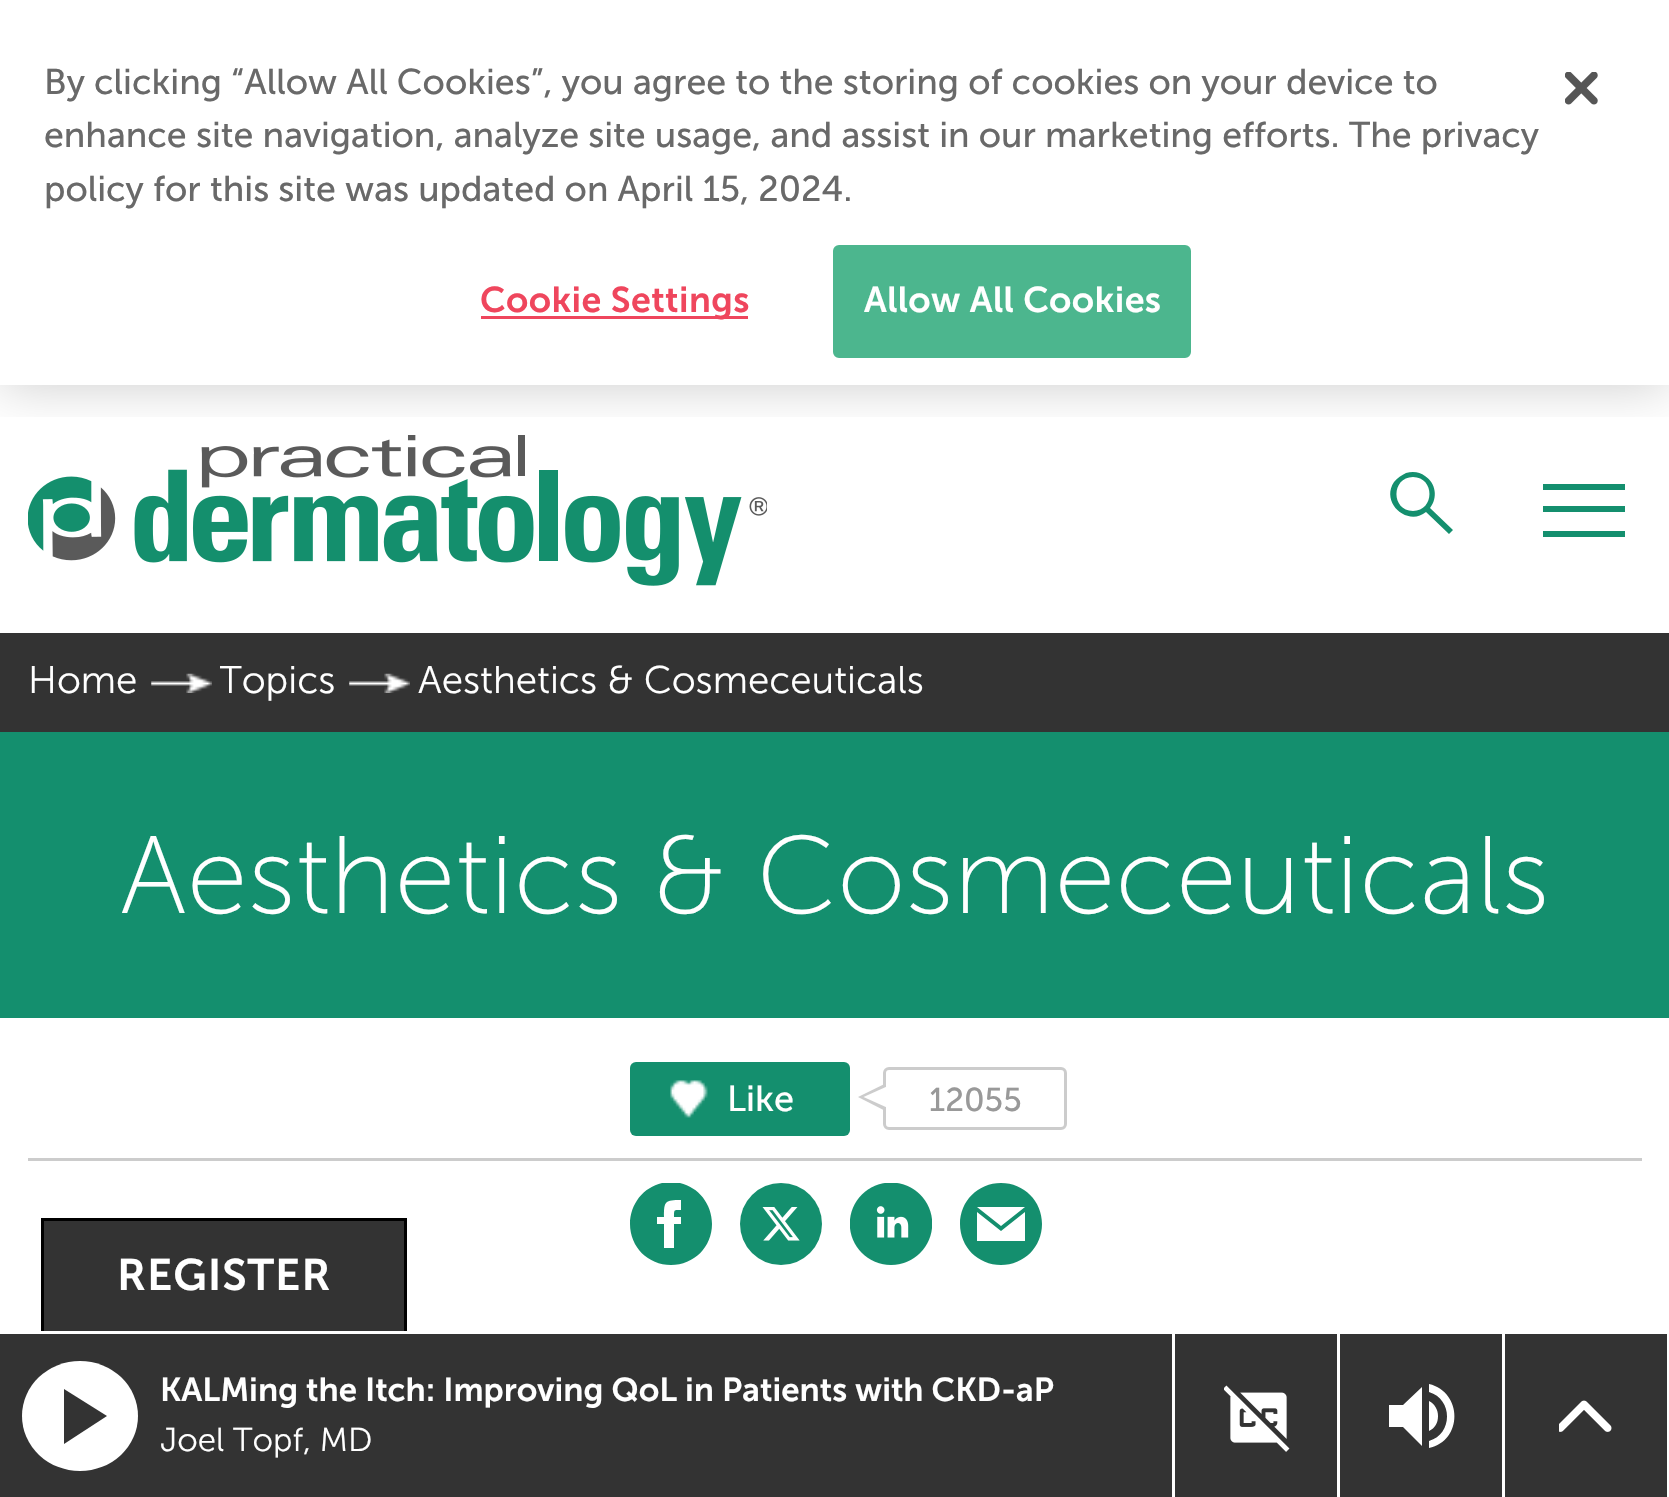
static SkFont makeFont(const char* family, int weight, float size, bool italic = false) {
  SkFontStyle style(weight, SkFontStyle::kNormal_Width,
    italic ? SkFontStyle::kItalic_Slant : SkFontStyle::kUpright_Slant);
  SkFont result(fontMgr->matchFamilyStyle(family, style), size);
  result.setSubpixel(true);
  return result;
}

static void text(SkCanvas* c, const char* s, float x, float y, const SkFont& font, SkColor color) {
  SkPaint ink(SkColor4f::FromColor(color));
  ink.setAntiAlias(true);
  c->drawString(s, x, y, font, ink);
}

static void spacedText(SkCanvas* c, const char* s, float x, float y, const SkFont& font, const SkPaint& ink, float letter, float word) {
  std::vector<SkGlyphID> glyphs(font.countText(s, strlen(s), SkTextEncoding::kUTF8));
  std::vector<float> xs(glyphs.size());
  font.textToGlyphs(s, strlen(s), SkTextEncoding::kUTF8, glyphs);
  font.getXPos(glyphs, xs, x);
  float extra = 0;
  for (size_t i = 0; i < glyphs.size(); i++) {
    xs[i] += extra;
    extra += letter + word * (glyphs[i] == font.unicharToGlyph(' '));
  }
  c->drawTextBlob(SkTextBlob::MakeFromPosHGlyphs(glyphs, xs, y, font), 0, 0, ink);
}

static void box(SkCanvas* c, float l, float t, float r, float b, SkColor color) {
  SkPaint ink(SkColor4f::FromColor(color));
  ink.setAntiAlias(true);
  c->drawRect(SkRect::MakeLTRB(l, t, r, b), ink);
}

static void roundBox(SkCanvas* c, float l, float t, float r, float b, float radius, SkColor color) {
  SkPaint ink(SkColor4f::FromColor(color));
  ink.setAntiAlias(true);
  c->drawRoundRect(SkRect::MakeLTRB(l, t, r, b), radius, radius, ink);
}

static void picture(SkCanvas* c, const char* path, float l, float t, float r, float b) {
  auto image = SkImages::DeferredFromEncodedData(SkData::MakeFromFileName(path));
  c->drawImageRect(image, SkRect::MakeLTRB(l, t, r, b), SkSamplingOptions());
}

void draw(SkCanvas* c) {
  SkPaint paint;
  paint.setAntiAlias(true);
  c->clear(0xffffffff);
  picture(c, "img_02.png", 28, 435, 767, 586);
  c->save();
  c->clipRect(SkRect::MakeLTRB(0, 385, 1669, 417));
  paint.setColor(0x33000000);
  paint.setMaskFilter(SkMaskFilter::MakeBlur(kNormal_SkBlurStyle, 25));
  c->drawRect(SkRect::MakeLTRB(0, 0, 1669, 385), paint);
  paint.setMaskFilter(nullptr);
  c->restore();
  SkFont face1 = makeFont("Museo Sans", 400, 35.75f);
  text(c, "By clicking “Allow All Cookies”, you agree to the storing of cookies on your device to", 44, 94, face1, 0xff696969);
  text(c, "enhance site navigation, analyze site usage, and assist in our marketing efforts.", 44, 147, face1, 0xff696969);
  text(c, "The privacy", 1349, 147, face1, 0xff696969);
  text(c, "policy for this site was updated on April 15, 2024.", 44, 201, face1, 0xff696969);
  box(c, 481, 316, 748, 319, 0xffef465d);
  SkFont face2 = makeFont("Museo Sans", 600, 35.75f);
  paint.setColor(0xffef465d);
  spacedText(c, "Cookie Settings", 480, 312, face2, paint, 0.4f, 0);
  paint.setColor(0xff4cb68e);
  c->drawRoundRect(SkRect::MakeLTRB(834.5f, 246.5f, 1189.5f, 356.5f), 4.5f, 4.5f, paint);
  paint.setStyle(SkPaint::kStroke_Style);
  paint.setStrokeWidth(3);
  c->drawRoundRect(SkRect::MakeLTRB(834.5f, 246.5f, 1189.5f, 356.5f), 4.5f, 4.5f, paint);
  paint.setStyle(SkPaint::kFill_Style);
  paint.setColor(0xffffffff);
  spacedText(c, "Allow All Cookies", 864, 312, face2, paint, 0.4f, 0);
  picture(c, "img_01.png", 1565, 72, 1598, 105);
  paint.setColor(0xff148f6e);
  c->drawPath(SkPathBuilder().moveTo(1449, 534).lineTo(1426, 512).cubicTo(1408, 527, 1380, 503, 1394, 482).cubicTo(1397, 478, 1402, 475, 1406, 473).cubicTo(1413, 471, 1420, 472, 1425, 476).cubicTo(1436, 483, 1438, 498, 1430, 508).lineTo(1453, 530).close().moveTo(1413, 511).cubicTo(1435, 511, 1435, 477, 1413, 477).cubicTo(1391, 477, 1391, 511, 1413, 511).close().detach(), paint);
  box(c, 1543, 484, 1625, 490, 0xff148f6e);
  box(c, 1543, 506, 1625, 512, 0xff148f6e);
  box(c, 1543, 531, 1625, 537, 0xff148f6e);
  box(c, 0, 633, 1669, 732, 0xff333333);
  SkFont face3 = makeFont("Museo Sans", 300, 38.5f);
  text(c, "Home", 28, 693, face3, 0xffffffff);
  picture(c, "img_03.png", 151, 673, 212, 693);
  c->save();
  c->clipRect(SkRect::MakeLTRB(220, 633, 336, 732));
  text(c, "Topics", 219, 693, face3, 0xffffffff);
  c->restore();
  picture(c, "img_03.png", 349, 673, 410, 693);
  text(c, "Aesthetics & Cosmeceuticals", 418, 693, face3, 0xffffffff);
  box(c, 0, 732, 1669, 1018, 0xff148f6e);
  SkFont face4 = makeFont("Museo Sans", 200, 110);
  text(c, "Aesthetics & Cosmeceuticals", 120, 913, face4, 0xffffffff);
  box(c, 28, 1158, 1642, 1161, 0xffcccccc);
  roundBox(c, 630, 1062, 850, 1136, 6, 0xff148f6e);
  picture(c, "img_04.png", 670, 1080, 708, 1118);
  SkFont face5 = makeFont("Museo Sans", 400, 36);
  text(c, "Like", 727, 1111, face5, 0xffffffff);
  paint.setStyle(SkPaint::kStroke_Style);
  paint.setColor(0xffcccccc);
  c->drawRoundRect(SkRect::MakeLTRB(884.5f, 1068.5f, 1065.5f, 1128.5f), 4.5f, 4.5f, paint);
  paint.setStyle(SkPaint::kFill_Style);
  c->drawPath(SkPathBuilder().moveTo(885.5f, 1083.5f).lineTo(885.5f, 1111).lineTo(858, 1097).close().detach(), paint);
  paint.setColor(0xffffffff);
  c->drawPath(SkPathBuilder().moveTo(888, 1086).lineTo(888, 1108).lineTo(863.5f, 1097).close().detach(), paint);
  SkFont face6 = makeFont("Museo Sans", 400, 33);
  text(c, "12055", 929, 1111, face6, 0xff999999);
  c->save();
  c->clipRect(SkRect::MakeLTRB(630, 1183, 712, 1265));
  paint.setColor(0xff148f6e);
  c->drawPath(SkPathBuilder().moveTo(671, 1182).cubicTo(648, 1182, 630, 1201, 630, 1224).cubicTo(630, 1247, 648, 1265, 671, 1265).cubicTo(694, 1265, 712, 1247, 712, 1224).cubicTo(712, 1201, 694, 1182, 671, 1182).close().moveTo(681, 1210).cubicTo(674, 1210, 674, 1209, 674, 1217).lineTo(681, 1217).lineTo(681, 1224).lineTo(674, 1224).lineTo(674, 1248).lineTo(664, 1248).lineTo(664, 1224).lineTo(657, 1224).lineTo(657, 1217).lineTo(664, 1217).cubicTo(664, 1201, 665, 1200, 681, 1200).close().detach(), paint);
  c->restore();
  c->drawCircle(781, 1224, 41, paint);
  picture(c, "img_05.png", 762, 1207, 800, 1241);
  picture(c, "img_06.png", 850, 1183, 932, 1265);
  c->drawPath(SkPathBuilder().moveTo(1001, 1183).cubicTo(978, 1183, 960, 1201, 960, 1224).cubicTo(960, 1247, 978, 1265, 1001, 1265).cubicTo(1024, 1265, 1042, 1247, 1042, 1224).cubicTo(1042, 1201, 1024, 1183, 1001, 1183).close().moveTo(1025, 1207).lineTo(1001, 1226).lineTo(977, 1207).close().moveTo(1025, 1241).lineTo(977, 1241).lineTo(977, 1212).lineTo(1001, 1231).lineTo(1025, 1212).close().detach(), paint);
  paint.setColor(0xff333333);
  c->drawRect(SkRect::MakeLTRB(42.5f, 1219.5f, 405.5f, 1332.5f), paint);
  paint.setStyle(SkPaint::kStroke_Style);
  paint.setColor(0xff000000);
  c->drawRect(SkRect::MakeLTRB(42.5f, 1219.5f, 405.5f, 1332.5f), paint);
  SkFont face7 = makeFont("Museo Sans", 600, 44);
  paint.setStyle(SkPaint::kFill_Style);
  paint.setColor(0xffffffff);
  spacedText(c, "REGISTER", 117, 1290, face7, paint, 1, 0);
  box(c, 41, 1331, 407, 1334, 0xffffffff);
  box(c, 0, 1334, 1667, 1497, 0xff333333);
  box(c, 1172, 1334, 1175, 1497, 0xffffffff);
  c->drawOval(SkRect::MakeLTRB(22, 1361, 138, 1471), paint);
  paint.setColor(0xff333333);
  c->drawPath(SkPathBuilder().moveTo(64, 1389).lineTo(64, 1444).lineTo(107, 1416).close().detach(), paint);
  SkFont face8 = makeFont("Museo Sans", 600, 33);
  text(c, "KALMing the Itch: Improving QoL in Patients with CKD-aP", 160, 1401, face8, 0xffffffff);
  SkFont face9 = makeFont("Museo Sans", 300, 33);
  text(c, "Joel Topf, MD", 160, 1451, face9, 0xffffffff);
  box(c, 1337, 1334, 1340, 1497, 0xffffffff);
  picture(c, "img_07.png", 1224, 1385, 1290, 1452);
  box(c, 1502, 1334, 1505, 1497, 0xffffffff);
  paint.setColor(0xffffffff);
  c->drawPath(SkPathBuilder().moveTo(1389, 1405).lineTo(1389, 1427).lineTo(1403, 1427).lineTo(1422, 1446).lineTo(1422, 1387).lineTo(1403, 1405).close().moveTo(1438, 1416).cubicTo(1438, 1410, 1435, 1404, 1429, 1401).lineTo(1429, 1431).cubicTo(1435, 1428, 1438, 1423, 1438, 1416).moveTo(1429, 1384).lineTo(1429, 1392).cubicTo(1453, 1399, 1453, 1434, 1429, 1441).lineTo(1429, 1448).cubicTo(1463, 1441, 1463, 1392, 1429, 1384).detach(), paint);
  picture(c, "img_08.png", 1559, 1400, 1612, 1432);
}
